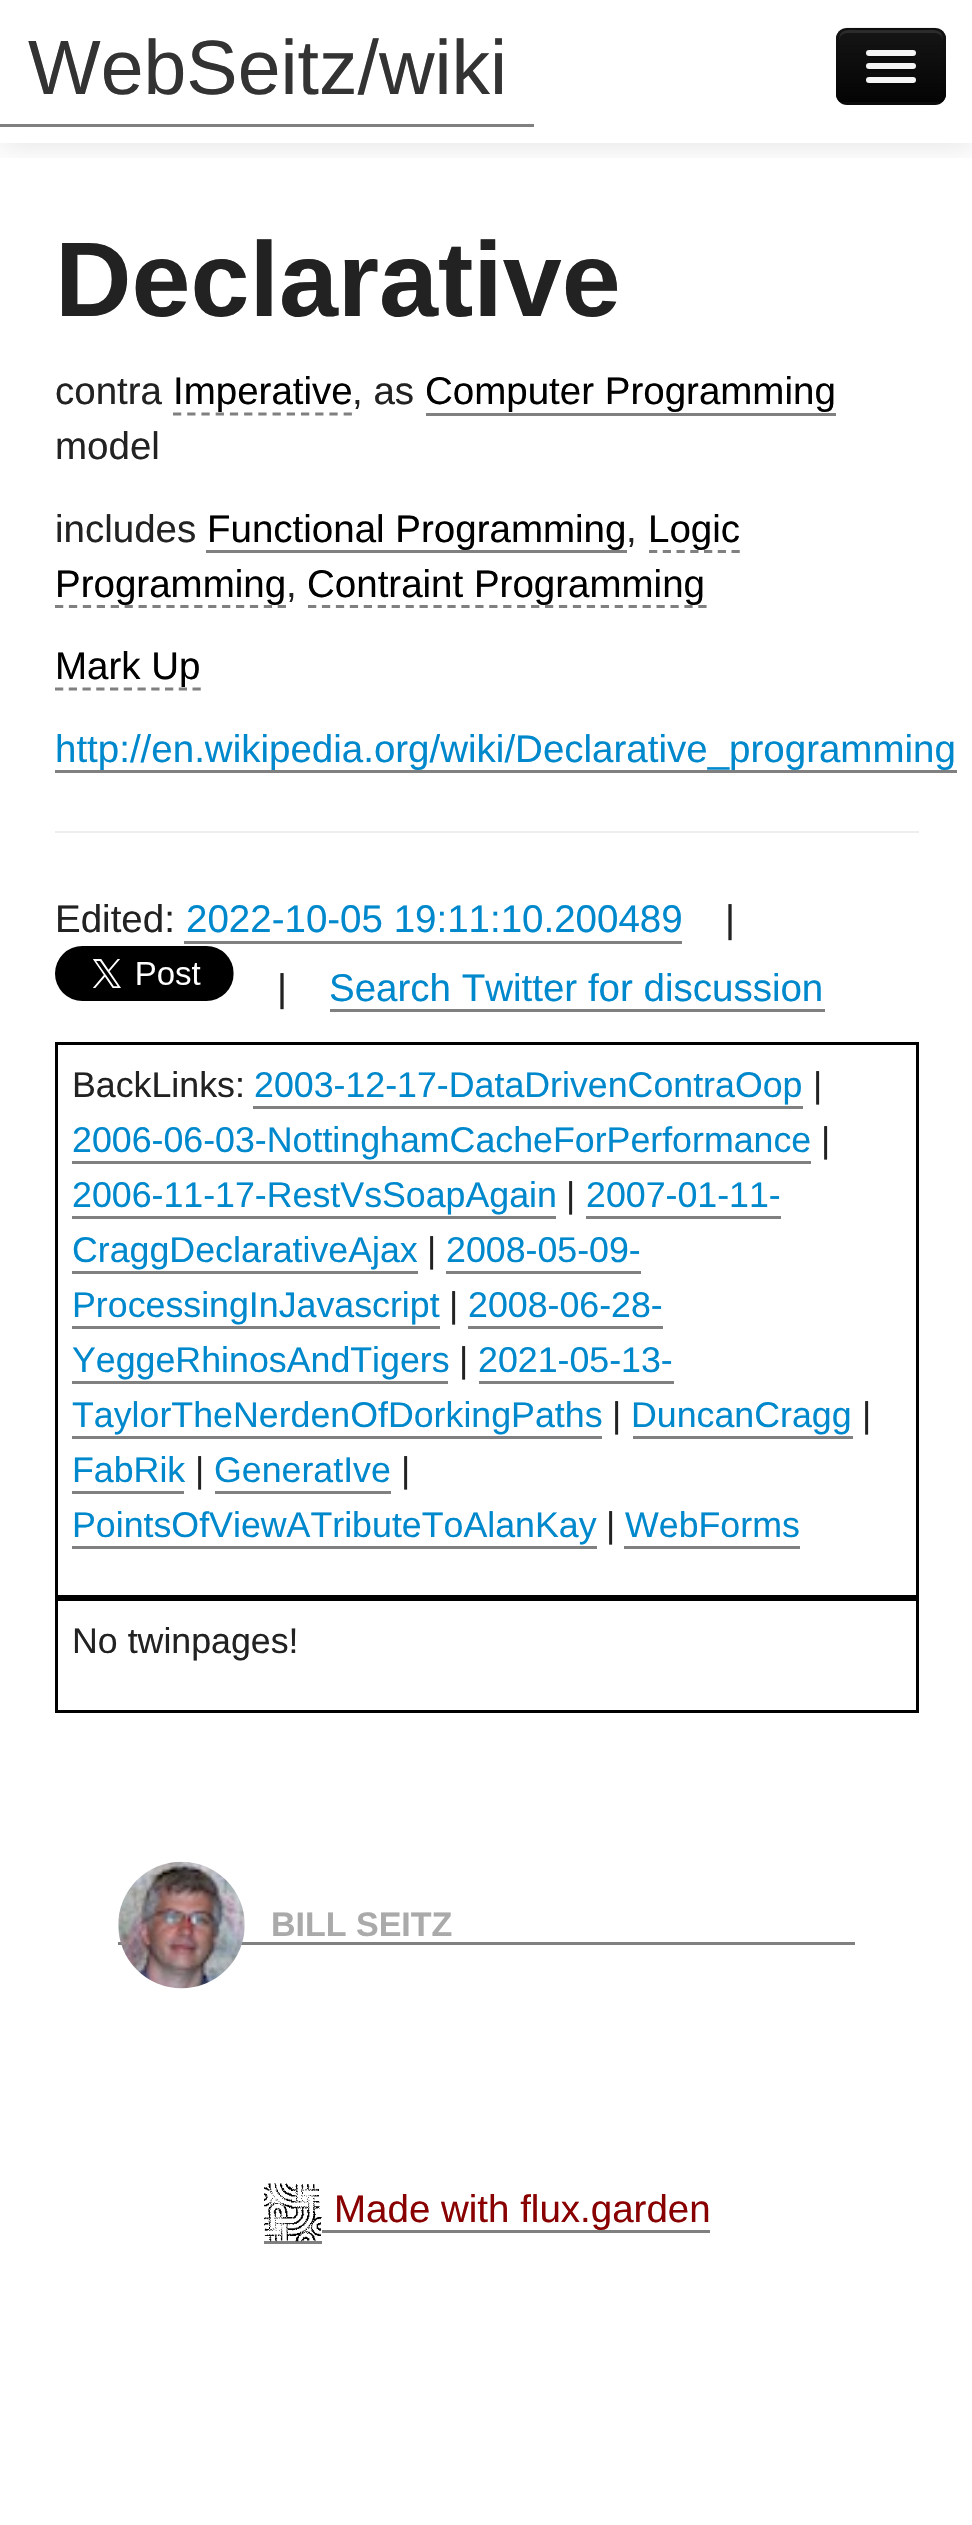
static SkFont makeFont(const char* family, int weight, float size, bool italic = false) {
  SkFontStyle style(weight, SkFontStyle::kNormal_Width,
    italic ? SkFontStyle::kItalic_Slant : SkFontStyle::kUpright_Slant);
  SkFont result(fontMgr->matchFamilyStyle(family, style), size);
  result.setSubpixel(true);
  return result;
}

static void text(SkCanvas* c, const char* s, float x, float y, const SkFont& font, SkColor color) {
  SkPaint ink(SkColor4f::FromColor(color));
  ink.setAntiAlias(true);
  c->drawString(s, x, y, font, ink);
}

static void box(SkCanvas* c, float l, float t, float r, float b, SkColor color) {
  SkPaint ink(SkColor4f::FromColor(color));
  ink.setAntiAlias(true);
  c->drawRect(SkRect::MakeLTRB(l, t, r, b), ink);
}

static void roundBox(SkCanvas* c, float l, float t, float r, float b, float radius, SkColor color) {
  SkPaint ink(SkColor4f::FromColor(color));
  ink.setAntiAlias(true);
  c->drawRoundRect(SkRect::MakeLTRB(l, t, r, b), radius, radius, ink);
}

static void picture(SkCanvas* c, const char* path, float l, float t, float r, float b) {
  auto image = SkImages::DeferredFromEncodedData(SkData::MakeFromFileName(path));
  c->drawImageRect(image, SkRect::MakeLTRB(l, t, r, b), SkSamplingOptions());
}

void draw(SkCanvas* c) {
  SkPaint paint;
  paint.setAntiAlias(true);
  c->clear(0xffffffff);
  c->save();
  c->clipRect(SkRect::MakeLTRB(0, 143, 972, 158));
  paint.setColor(0x1a000000);
  paint.setMaskFilter(SkMaskFilter::MakeBlur(kNormal_SkBlurStyle, 14));
  c->drawRect(SkRect::MakeLTRB(0, 3, 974, 146), paint);
  paint.setMaskFilter(nullptr);
  c->restore();
  box(c, 0, 124, 534, 127, 0xff808080);
  SkFont face1 = makeFont("Liberation Sans", 400, 77);
  text(c, "WebSeitz/wiki", 28, 94, face1, 0xff333333);
  roundBox(c, 836, 28, 946, 105, 11, 0xff0e0e0e);
  c->save();
  c->clipPath(SkPathBuilder().moveTo(847, 28).lineTo(935, 28).cubicTo(941, 28, 946, 33, 946, 39).lineTo(946, 94).cubicTo(946, 100, 941, 105, 935, 105).lineTo(847, 105).cubicTo(841, 105, 836, 100, 836, 94).lineTo(836, 39).cubicTo(836, 33, 841, 28, 847, 28).close().detach(), true);
  {
    const SkColor colors[] = {0xff151515, 0xff040404};
    const float stops[] = {0, 1};
    const SkPoint ends[] = {{891, 30}, {891, 102}};
    paint.setShader(SkGradientShader::MakeLinear(ends, colors, stops, 2, SkTileMode::kClamp));
    paint.setAlpha(255);
  }
  c->drawRect(SkRect::MakeLTRB(836, 30, 946, 102), paint);
  c->restore();
  paint.setShader(nullptr);
  paint.setColor(0xff2c2c2c);
  c->drawPath(SkPathBuilder().moveTo(847, 33).lineTo(935, 33).cubicTo(940, 33, 943, 37, 943, 41).cubicTo(943, 27, 932, 30, 920, 30).lineTo(862, 30).cubicTo(850, 30, 839, 27, 839, 41).cubicTo(839, 37, 842, 33, 847, 33).close().detach(), paint);
  paint.setStyle(SkPaint::kStroke_Style);
  paint.setStrokeWidth(2.8f);
  paint.setColor(0x40000000);
  c->drawPath(SkPathBuilder().moveTo(942, 100.5f).cubicTo(940, 102, 937.5f, 103, 935, 103).lineTo(847, 103).cubicTo(844.5f, 103, 842, 102, 840, 100.5f).detach(), paint);
  paint.setColor(0x1a000000);
  c->drawPath(SkPathBuilder().moveTo(840, 100.5f).cubicTo(838.5f, 98.5f, 837.5f, 96, 837.5f, 93.5f).lineTo(837.5f, 38.5f).cubicTo(837.5f, 36, 838.5f, 33.5f, 840, 31.5f).cubicTo(842, 30, 844.5f, 29, 847, 29).lineTo(935, 29).cubicTo(937.5f, 29, 940, 30, 942, 31.5f).cubicTo(943.5f, 33.5f, 944.5f, 36, 944.5f, 38.5f).lineTo(944.5f, 93.5f).cubicTo(944.5f, 96, 943.5f, 98.5f, 942, 100.5f).detach(), paint);
  paint.setStyle(SkPaint::kFill_Style);
  paint.setColor(0xff0b0b0b);
  c->drawPath(SkPathBuilder().moveTo(866, 53).cubicTo(863, 59, 876, 58, 876, 58).lineTo(906, 58).cubicTo(906, 58, 919, 59, 916, 53).cubicTo(915, 54, 914, 55, 913, 55).lineTo(869, 55).cubicTo(868, 55, 867, 54, 866, 53).close().detach(), paint);
  roundBox(c, 866, 50, 916, 56, 3, 0xfff5f5f5);
  paint.setColor(0xff090909);
  c->drawPath(SkPathBuilder().moveTo(867, 67).cubicTo(862, 73, 876, 72, 876, 72).lineTo(906, 72).cubicTo(906, 72, 920, 73, 915, 67).cubicTo(915, 68, 914, 69, 913, 69).lineTo(869, 69).cubicTo(868, 69, 867, 68, 867, 67).close().detach(), paint);
  roundBox(c, 866, 63, 916, 69, 3, 0xfff5f5f5);
  paint.setColor(0xff060606);
  c->drawPath(SkPathBuilder().moveTo(867, 81).cubicTo(865, 83, 866, 86, 868, 86).lineTo(914, 86).cubicTo(916, 86, 917, 83, 915, 81).cubicTo(915, 82, 914, 82, 913, 82).lineTo(869, 82).cubicTo(868, 82, 867, 82, 867, 81).close().detach(), paint);
  roundBox(c, 866, 77, 916, 83, 3, 0xfff5f5f5);
  SkFont face2 = makeFont("Liberation Sans", 700, 106);
  text(c, "Declarative", 55, 316, face2, 0xff222222);
  SkFont face3 = makeFont("Liberation Sans", 400, 38.5f);
  text(c, "contra", 55, 404, face3, 0xff222222);
  text(c, "Imperative", 173, 404, face3, 0xff000000);
  paint.setStyle(SkPaint::kStroke_Style);
  paint.setColor(0xff808080);
  paint.setPathEffect(SkDashPathEffect::Make({{8.25f, 5.97f}}, 0));
  c->drawPath(SkPathBuilder().moveTo(173, 414).lineTo(352, 414).detach(), paint);
  paint.setPathEffect(nullptr);
  text(c, ", as", 352, 404, face3, 0xff222222);
  text(c, "Computer Programming", 425, 404, face3, 0xff000000);
  box(c, 426, 413, 836, 416, 0xff808080);
  text(c, "model", 55, 459, face3, 0xff222222);
  text(c, "includes", 55, 542, face3, 0xff222222);
  text(c, "Functional Programming", 207, 542, face3, 0xff000000);
  box(c, 206, 550, 627, 553, 0xff808080);
  text(c, ",", 626, 542, face3, 0xff222222);
  text(c, "Logic", 648, 542, face3, 0xff000000);
  paint.setPathEffect(SkDashPathEffect::Make({{8.25f, 5.5f}}, 0));
  c->drawPath(SkPathBuilder().moveTo(649, 551.5f).lineTo(740, 551.5f).detach(), paint);
  paint.setPathEffect(nullptr);
  text(c, "Programming", 55, 597, face3, 0xff000000);
  paint.setPathEffect(SkDashPathEffect::Make({{8.25f, 5.67f}}, 0));
  c->drawPath(SkPathBuilder().moveTo(55, 606.5f).lineTo(286, 606.5f).detach(), paint);
  paint.setPathEffect(nullptr);
  text(c, ",", 286, 597, face3, 0xff222222);
  text(c, "Contraint Programming", 307, 597, face3, 0xff000000);
  paint.setPathEffect(SkDashPathEffect::Make({{8.25f, 5.69f}}, 0));
  c->drawPath(SkPathBuilder().moveTo(308, 606.5f).lineTo(707, 606.5f).detach(), paint);
  paint.setPathEffect(nullptr);
  text(c, "Mark Up", 55, 679, face3, 0xff000000);
  paint.setPathEffect(SkDashPathEffect::Make({{8.25f, 5.5f}}, 0));
  c->drawPath(SkPathBuilder().moveTo(55, 689).lineTo(201, 689).detach(), paint);
  paint.setPathEffect(nullptr);
  text(c, "http://en.wikipedia.org/wiki/Declarative_programming", 55, 762, face3, 0xff0088cc);
  box(c, 55, 770, 957, 773, 0xff808080);
  box(c, 55, 831, 919, 833, 0xffeeeeee);
  text(c, "Edited:", 55, 932, face3, 0xff222222);
  text(c, "2022-10-05 19:11:10.200489", 186, 932, face3, 0xff0088cc);
  box(c, 184, 941, 682, 944, 0xff808080);
  text(c, "|", 725, 932, face3, 0xff222222);
  picture(c, "img_01.png", 55, 946, 234, 1001);
  text(c, "|", 277, 1001, face3, 0xff222222);
  text(c, "Search Twitter for discussion", 329, 1001, face3, 0xff0088cc);
  box(c, 330, 1009, 825, 1012, 0xff808080);
  paint.setStrokeWidth(3);
  paint.setColor(0xff000000);
  c->drawRect(SkRect::MakeLTRB(56.5f, 1043.5f, 917.5f, 1596.5f), paint);
  SkFont face4 = makeFont("Liberation Sans", 400, 35.75f);
  text(c, "BackLinks:", 72, 1097, face4, 0xff222222);
  text(c, "2003-12-17-DataDrivenContraOop", 254, 1097, face4, 0xff0088cc);
  box(c, 253, 1106, 803, 1109, 0xff808080);
  text(c, "|", 813, 1097, face4, 0xff222222);
  text(c, "2006-06-03-NottinghamCacheForPerformance", 72, 1152, face4, 0xff0088cc);
  box(c, 72, 1161, 811, 1164, 0xff808080);
  text(c, "|", 821, 1152, face4, 0xff222222);
  text(c, "2006-11-17-RestVsSoapAgain", 72, 1207, face4, 0xff0088cc);
  box(c, 72, 1216, 556, 1219, 0xff808080);
  text(c, "|", 566, 1207, face4, 0xff222222);
  text(c, "2007-01-11-", 586, 1207, face4, 0xff0088cc);
  box(c, 586, 1216, 781, 1219, 0xff808080);
  text(c, "CraggDeclarativeAjax", 72, 1262, face4, 0xff0088cc);
  box(c, 72, 1271, 418, 1274, 0xff808080);
  text(c, "|", 427, 1262, face4, 0xff222222);
  text(c, "2008-05-09-", 446, 1262, face4, 0xff0088cc);
  box(c, 446, 1271, 641, 1274, 0xff808080);
  text(c, "ProcessingInJavascript", 72, 1317, face4, 0xff0088cc);
  box(c, 72, 1326, 440, 1329, 0xff808080);
  text(c, "|", 449, 1317, face4, 0xff222222);
  text(c, "2008-06-28-", 468, 1317, face4, 0xff0088cc);
  box(c, 468, 1326, 663, 1329, 0xff808080);
  text(c, "YeggeRhinosAndTigers", 72, 1372, face4, 0xff0088cc);
  box(c, 72, 1381, 448, 1384, 0xff808080);
  text(c, "|", 459, 1372, face4, 0xff222222);
  text(c, "2021-05-13-", 478, 1372, face4, 0xff0088cc);
  box(c, 479, 1381, 674, 1384, 0xff808080);
  text(c, "TaylorTheNerdenOfDorkingPaths", 72, 1427, face4, 0xff0088cc);
  box(c, 72, 1436, 602, 1439, 0xff808080);
  text(c, "|", 612, 1427, face4, 0xff222222);
  text(c, "DuncanCragg", 631, 1427, face4, 0xff0088cc);
  box(c, 633, 1436, 853, 1439, 0xff808080);
  text(c, "|", 862, 1427, face4, 0xff222222);
  text(c, "FabRik", 72, 1482, face4, 0xff0088cc);
  box(c, 72, 1491, 184, 1494, 0xff808080);
  text(c, "|", 195, 1482, face4, 0xff222222);
  text(c, "GeneratIve", 214, 1482, face4, 0xff0088cc);
  box(c, 215, 1491, 391, 1494, 0xff808080);
  text(c, "|", 401, 1482, face4, 0xff222222);
  text(c, "PointsOfViewATributeToAlanKay", 72, 1537, face4, 0xff0088cc);
  box(c, 72, 1546, 597, 1549, 0xff808080);
  text(c, "|", 606, 1537, face4, 0xff222222);
  text(c, "WebForms", 625, 1537, face4, 0xff0088cc);
  box(c, 624, 1546, 800, 1549, 0xff808080);
  c->drawRect(SkRect::MakeLTRB(56.5f, 1599.5f, 917.5f, 1711.5f), paint);
  text(c, "No twinpages!", 72, 1653, face4, 0xff222222);
  box(c, 118, 1942, 855, 1945, 0xff808080);
  picture(c, "img_02.png", 118, 1861, 245, 1989);
  SkFont face5 = makeFont("Liberation Sans", 700, 34);
  text(c, "BILL SEITZ", 271, 1936, face5, 0xffaaaaaa);
  box(c, 264, 2241, 322, 2244, 0xff808080);
  picture(c, "img_03.png", 264, 2183, 322, 2242);
  text(c, "Made with flux.garden", 334, 2222, face3, 0xff880000);
  box(c, 322, 2230, 710, 2233, 0xff808080);
}
